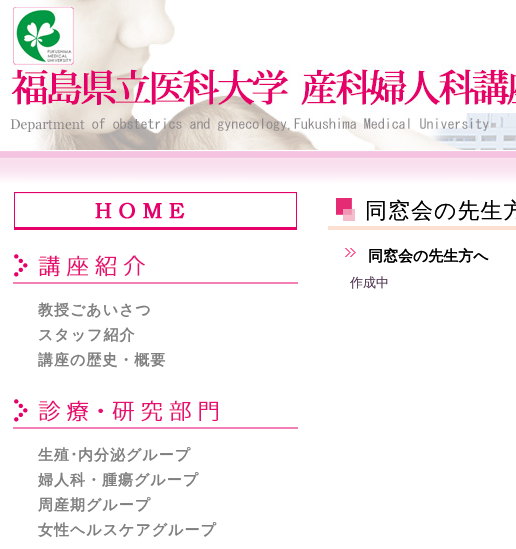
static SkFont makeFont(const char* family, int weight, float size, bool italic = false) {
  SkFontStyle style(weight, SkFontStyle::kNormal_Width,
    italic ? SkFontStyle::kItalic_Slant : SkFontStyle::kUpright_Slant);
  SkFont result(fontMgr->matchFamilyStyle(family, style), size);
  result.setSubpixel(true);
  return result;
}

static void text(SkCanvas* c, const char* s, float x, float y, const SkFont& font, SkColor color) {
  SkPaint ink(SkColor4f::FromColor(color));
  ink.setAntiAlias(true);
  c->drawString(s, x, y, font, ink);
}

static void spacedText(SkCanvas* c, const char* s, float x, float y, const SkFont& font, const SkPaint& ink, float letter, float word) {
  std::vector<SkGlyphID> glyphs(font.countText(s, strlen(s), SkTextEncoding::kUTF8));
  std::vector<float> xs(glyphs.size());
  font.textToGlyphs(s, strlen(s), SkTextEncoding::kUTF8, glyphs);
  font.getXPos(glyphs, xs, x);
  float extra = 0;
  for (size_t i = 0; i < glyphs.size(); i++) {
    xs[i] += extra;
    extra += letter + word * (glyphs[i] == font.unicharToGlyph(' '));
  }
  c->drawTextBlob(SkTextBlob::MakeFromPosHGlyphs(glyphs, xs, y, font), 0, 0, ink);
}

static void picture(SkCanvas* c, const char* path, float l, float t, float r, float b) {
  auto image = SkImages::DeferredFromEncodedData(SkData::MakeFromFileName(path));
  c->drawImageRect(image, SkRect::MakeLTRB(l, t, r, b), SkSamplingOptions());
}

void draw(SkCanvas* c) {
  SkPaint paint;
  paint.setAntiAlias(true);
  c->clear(0xffffffff);
  picture(c, "img_01.png", 0, 151, 516, 183);
  picture(c, "img_02.png", 10, 0, 516, 150);
  picture(c, "img_03.png", 328, 198, 516, 230);
  SkFont face1 = makeFont("WenQuanYi Zen Hei", 500, 22);
  paint.setColor(0xff000000);
  spacedText(c, "同窓会の先生方", 365, 218, face1, paint, 1, 0);
  picture(c, "img_04.png", 345, 248, 356, 257);
  SkFont face2 = makeFont("WenQuanYi Zen Hei", 700, 15);
  text(c, "同窓会の先生方へ", 368, 261, face2, 0xff000000);
  SkFont face3 = makeFont("WenQuanYi Zen Hei", 500, 13);
  text(c, "作成中", 350, 287, face3, 0xff523852);
  picture(c, "img_05.png", 14, 192, 297, 230);
  picture(c, "img_06.png", 13, 254, 298, 284);
  paint.setColor(0xff808080);
  spacedText(c, "教授ごあいさつ", 38, 315, face2, paint, 1, 0);
  spacedText(c, "スタッフ紹介", 38, 340, face2, paint, 1, 0);
  spacedText(c, "講座の歴史・概要", 38, 365, face2, paint, 1, 0);
  picture(c, "img_07.png", 13, 399, 298, 429);
  spacedText(c, "生殖", 38, 460, face2, paint, 1, 0);
  SkFont face4 = makeFont("IPAPGothic", 700, 15);
  spacedText(c, "･", 70, 460, face4, paint, 1, 0);
  spacedText(c, "内分泌グループ", 78, 460, face2, paint, 1, 0);
  spacedText(c, "婦人科・腫瘍グループ", 38, 485, face2, paint, 1, 0);
  spacedText(c, "周産期グループ", 38, 510, face2, paint, 1, 0);
  spacedText(c, "女性ヘルスケアグループ", 38, 535, face2, paint, 1, 0);
}
